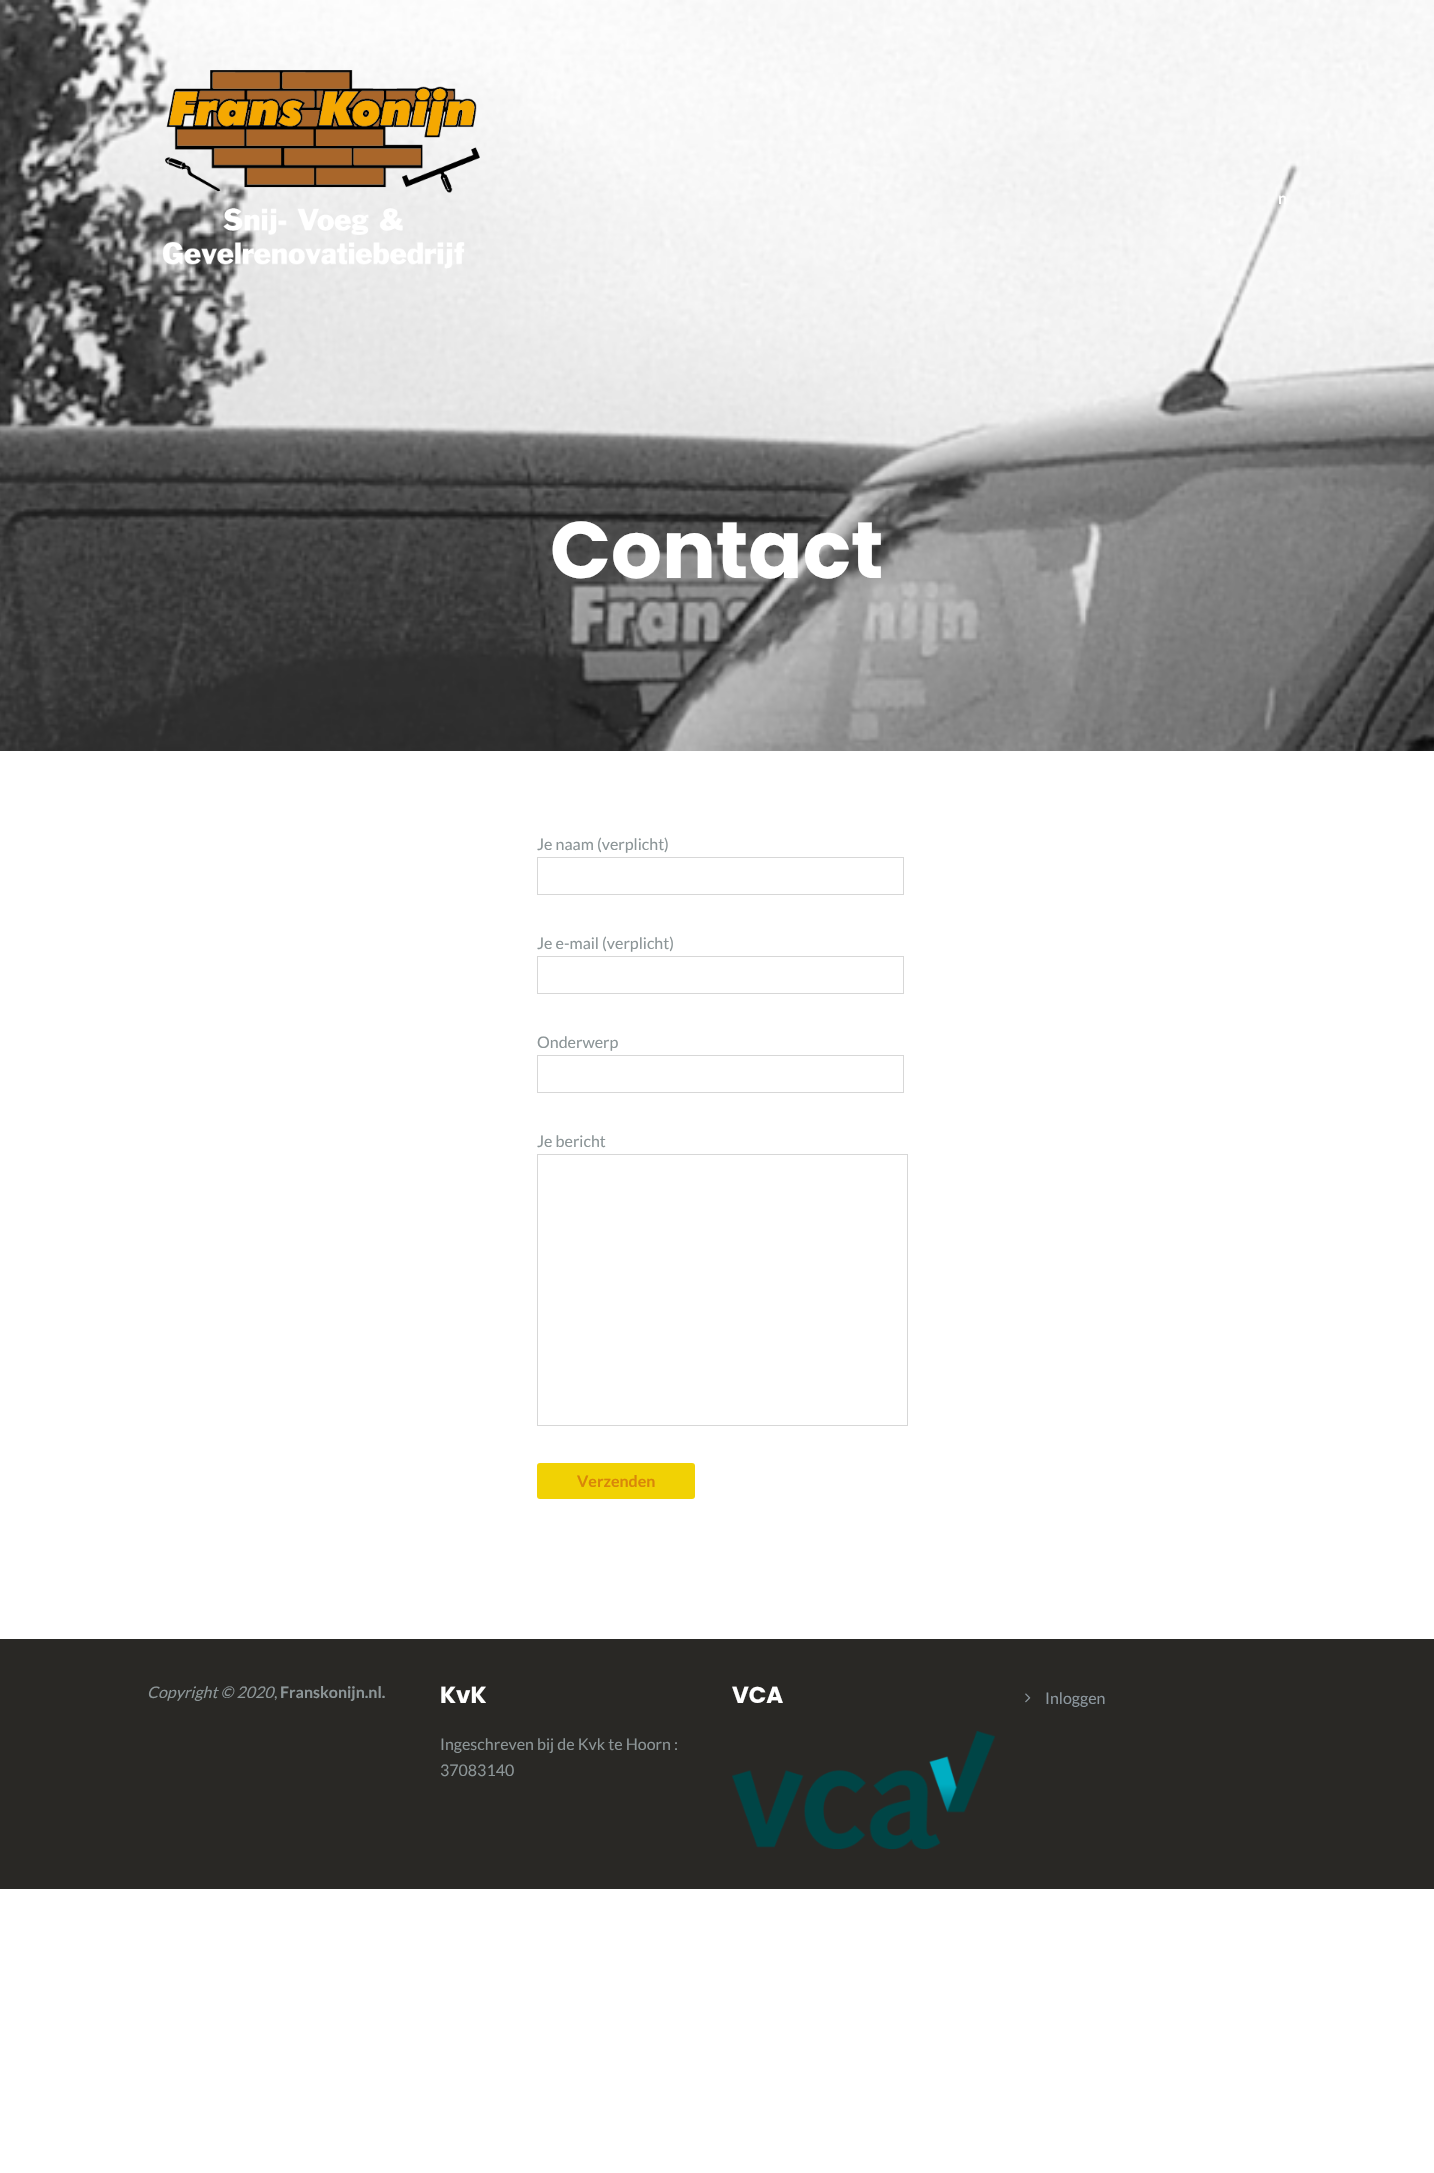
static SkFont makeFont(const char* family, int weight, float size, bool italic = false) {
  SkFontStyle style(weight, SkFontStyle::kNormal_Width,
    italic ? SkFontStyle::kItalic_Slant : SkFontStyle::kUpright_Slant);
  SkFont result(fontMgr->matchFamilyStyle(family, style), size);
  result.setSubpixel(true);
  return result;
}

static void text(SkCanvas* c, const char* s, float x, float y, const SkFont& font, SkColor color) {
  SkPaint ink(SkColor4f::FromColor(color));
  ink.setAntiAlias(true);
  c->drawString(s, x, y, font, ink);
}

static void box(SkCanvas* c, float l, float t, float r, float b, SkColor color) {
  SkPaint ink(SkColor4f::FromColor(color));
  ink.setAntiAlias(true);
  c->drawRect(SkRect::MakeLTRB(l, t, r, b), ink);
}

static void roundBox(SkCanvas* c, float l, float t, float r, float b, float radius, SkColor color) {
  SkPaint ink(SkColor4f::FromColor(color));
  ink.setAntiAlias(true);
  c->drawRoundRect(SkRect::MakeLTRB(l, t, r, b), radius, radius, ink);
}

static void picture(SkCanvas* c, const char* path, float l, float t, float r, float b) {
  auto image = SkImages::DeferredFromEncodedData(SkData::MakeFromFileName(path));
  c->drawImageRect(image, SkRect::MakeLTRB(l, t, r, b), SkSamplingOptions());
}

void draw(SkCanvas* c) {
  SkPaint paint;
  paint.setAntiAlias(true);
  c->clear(0xffffffff);
  picture(c, "img_01.png", 0, 0, 1434, 751);
  picture(c, "img_02.png", 162, 70, 480, 269);
  SkFont face1 = makeFont("Lato", 700, 16);
  text(c, "n", 1278, 204, face1, 0xffffffff);
  SkFont face2 = makeFont("Poppins", 700, 80);
  text(c, "Contact", 550, 578, face2, 0xffffffff);
  SkFont face3 = makeFont("Lato", 400, 16);
  text(c, "Je naam (verplicht)", 537, 850, face3, 0xff8c9597);
  paint.setStyle(SkPaint::kStroke_Style);
  paint.setStrokeWidth(1);
  paint.setColor(0xffd7d7d7);
  c->drawRect(SkRect::MakeLTRB(537.5f, 857.5f, 903.5f, 894.5f), paint);
  text(c, "Je e-mail (verplicht)", 537, 949, face3, 0xff8c9597);
  c->drawRect(SkRect::MakeLTRB(537.5f, 956.5f, 903.5f, 993.5f), paint);
  text(c, "Onderwerp", 537, 1048, face3, 0xff8c9597);
  c->drawRect(SkRect::MakeLTRB(537.5f, 1055.5f, 903.5f, 1092.5f), paint);
  text(c, "Je bericht", 537, 1147, face3, 0xff8c9597);
  c->drawRect(SkRect::MakeLTRB(537.5f, 1154.5f, 907.5f, 1425.5f), paint);
  roundBox(c, 537, 1463, 695, 1499, 3, 0xfff1d204);
  text(c, "Verzenden", 577, 1487, face1, 0xffd98609);
  box(c, 0, 1639, 1434, 1889, 0xff292825);
  SkFont face4 = makeFont("Lato", 400, 16, true);
  text(c, "Copyright © 2020", 147, 1698, face4, 0xff8c9597);
  text(c, ",", 274, 1698, face3, 0xff8c9597);
  text(c, "Franskonijn.nl.", 280, 1698, face1, 0xff8c9597);
  SkFont face5 = makeFont("Poppins", 700, 23);
  text(c, "KvK", 440, 1703, face5, 0xffffffff);
  text(c, "Ingeschreven bij de Kvk te Hoorn :", 440, 1750, face3, 0xff8c9597);
  text(c, "37083140", 440, 1776, face3, 0xff8c9597);
  text(c, "VCA", 732, 1703, face5, 0xffffffff);
  picture(c, "img_03.png", 732, 1731, 995, 1849);
  picture(c, "img_04.png", 1025, 1693, 1031, 1703);
  text(c, "Inloggen", 1045, 1704, face3, 0xff8c979e);
}
